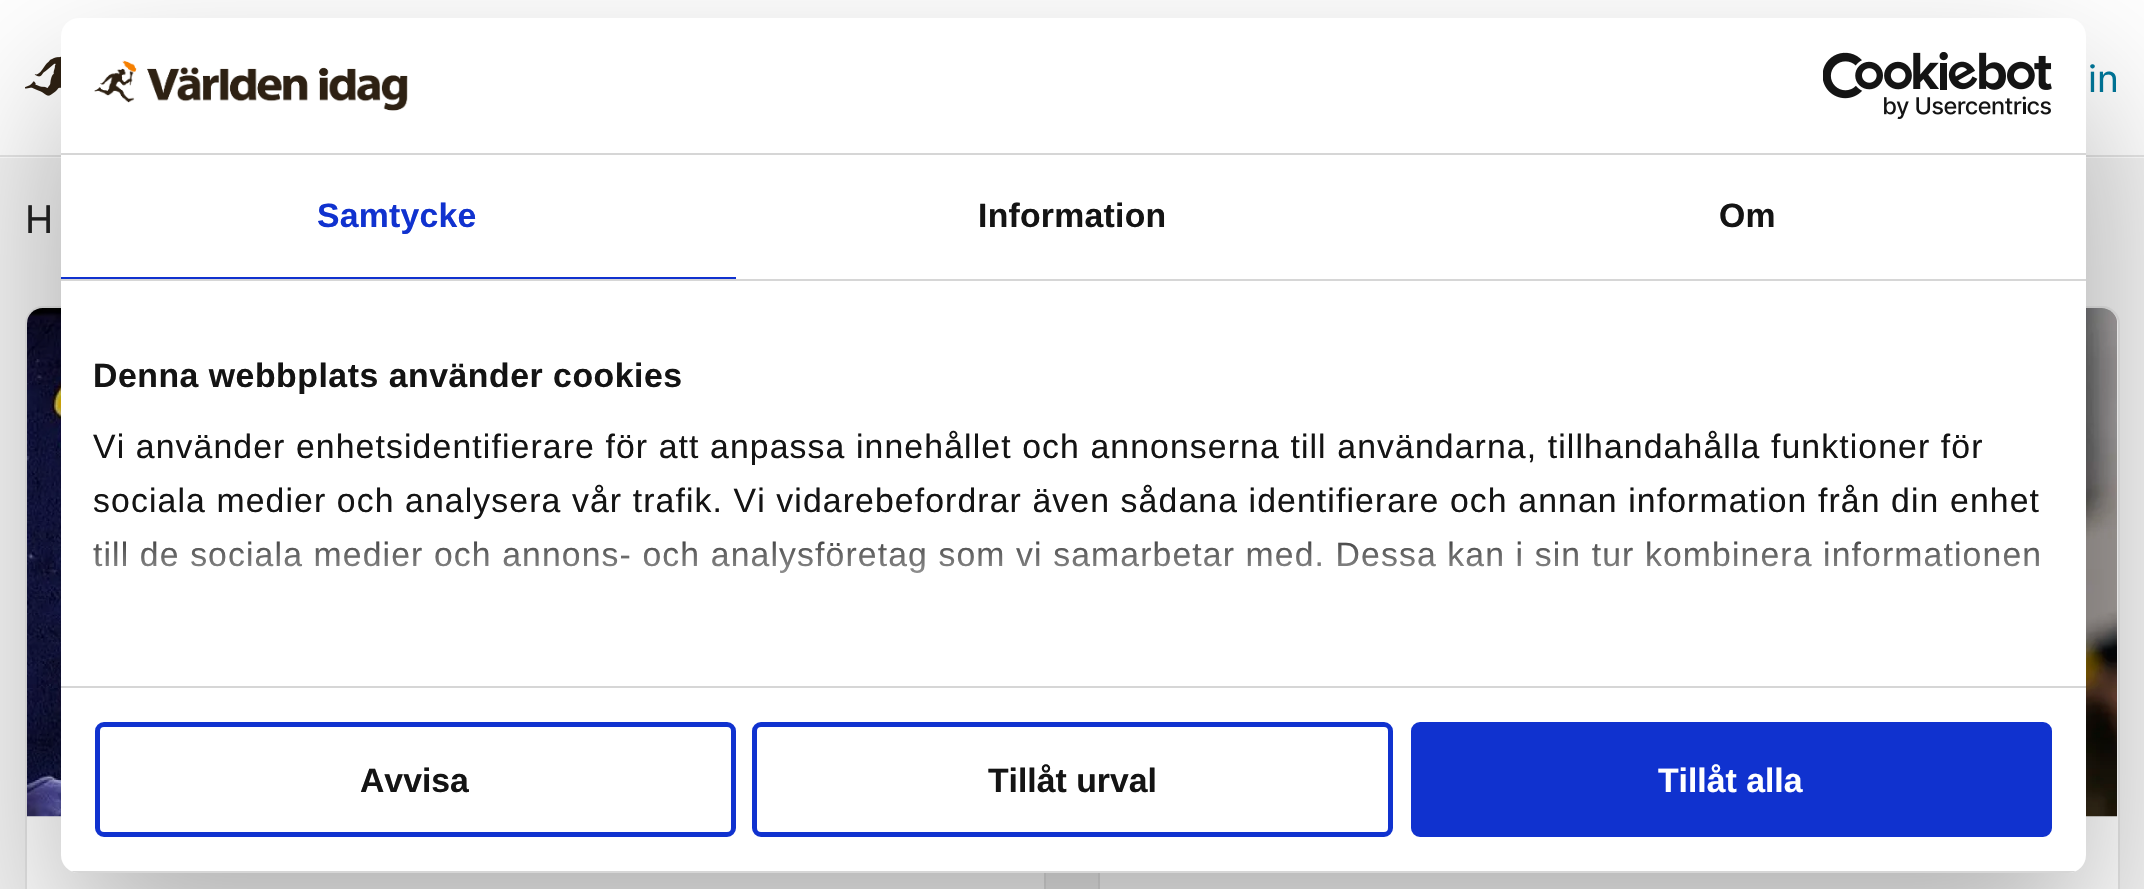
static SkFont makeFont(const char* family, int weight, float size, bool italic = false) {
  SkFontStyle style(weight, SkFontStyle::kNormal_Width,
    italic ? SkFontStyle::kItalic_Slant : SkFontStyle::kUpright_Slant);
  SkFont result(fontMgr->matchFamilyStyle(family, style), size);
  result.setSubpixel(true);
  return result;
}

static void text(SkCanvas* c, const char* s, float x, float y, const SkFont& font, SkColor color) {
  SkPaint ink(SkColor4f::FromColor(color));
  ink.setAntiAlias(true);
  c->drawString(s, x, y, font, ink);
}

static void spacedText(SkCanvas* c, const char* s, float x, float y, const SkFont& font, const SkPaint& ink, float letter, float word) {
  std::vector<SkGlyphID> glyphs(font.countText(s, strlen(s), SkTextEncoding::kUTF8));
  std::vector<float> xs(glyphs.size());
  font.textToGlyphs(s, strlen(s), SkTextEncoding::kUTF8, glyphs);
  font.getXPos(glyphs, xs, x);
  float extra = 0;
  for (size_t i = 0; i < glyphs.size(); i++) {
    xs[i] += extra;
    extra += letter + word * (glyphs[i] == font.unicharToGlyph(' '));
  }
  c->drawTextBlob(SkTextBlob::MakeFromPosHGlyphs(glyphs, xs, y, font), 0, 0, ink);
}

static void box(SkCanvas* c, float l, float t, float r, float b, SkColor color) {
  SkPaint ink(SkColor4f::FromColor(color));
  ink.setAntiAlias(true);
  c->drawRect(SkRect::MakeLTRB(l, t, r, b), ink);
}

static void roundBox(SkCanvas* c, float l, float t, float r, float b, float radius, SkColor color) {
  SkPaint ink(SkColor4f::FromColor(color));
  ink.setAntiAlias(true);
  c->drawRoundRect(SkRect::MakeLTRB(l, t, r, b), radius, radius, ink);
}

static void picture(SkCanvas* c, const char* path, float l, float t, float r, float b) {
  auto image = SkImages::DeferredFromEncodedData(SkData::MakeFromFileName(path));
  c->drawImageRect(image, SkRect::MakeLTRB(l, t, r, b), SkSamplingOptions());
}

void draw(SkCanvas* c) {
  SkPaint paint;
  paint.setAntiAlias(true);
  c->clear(0xfff2f2f2);
  box(c, 0, 0, 2144, 158, 0xffffffff);
  box(c, 0, 155, 2144, 157, 0xffe5e5e5);
  picture(c, "img_01.png", 25, 56, 61, 96);
  SkFont face1 = makeFont("Inter", 400, 37);
  text(c, "in", 2088, 92, face1, 0xff00789b);
  SkFont face2 = makeFont("Inter", 400, 38);
  text(c, "H", 25, 233, face2, 0xff222222);
  paint.setColor(0xffffffff);
  c->drawRoundRect(SkRect::MakeLTRB(26, 307, 1045, 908), 17, 17, paint);
  paint.setStyle(SkPaint::kStroke_Style);
  paint.setStrokeWidth(2);
  paint.setColor(0xffe5e5e5);
  c->drawRoundRect(SkRect::MakeLTRB(26, 307, 1045, 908), 17, 17, paint);
  picture(c, "img_02.png", 27, 308, 61, 817);
  paint.setStyle(SkPaint::kFill_Style);
  paint.setColor(0xffffffff);
  c->drawRoundRect(SkRect::MakeLTRB(1099, 307, 2119, 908), 17, 17, paint);
  paint.setStyle(SkPaint::kStroke_Style);
  paint.setColor(0xffe5e5e5);
  c->drawRoundRect(SkRect::MakeLTRB(1099, 307, 2119, 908), 17, 17, paint);
  picture(c, "img_03.png", 2086, 308, 2117, 817);
  paint.setStyle(SkPaint::kFill_Style);
  paint.setColor(0x4d000000);
  paint.setMaskFilter(SkMaskFilter::MakeBlur(kNormal_SkBlurStyle, 76.5f));
  c->drawRoundRect(SkRect::MakeLTRB(61, 90, 2086, 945), 18, 18, paint);
  paint.setMaskFilter(nullptr);
  roundBox(c, 61, 18, 2086, 873, 18, 0xffffffff);
  box(c, 61, 153, 2086, 155, 0xffd6d6d6);
  picture(c, "img_04.png", 94, 60, 408, 111);
  picture(c, "img_05.png", 1823, 52, 2052, 119);
  box(c, 61, 279, 2086, 281, 0xffd6d6d6);
  box(c, 61, 277, 736, 279, 0xff1032cf);
  SkFont face3 = makeFont("Liberation Sans", 700, 33.75f);
  paint.setColor(0xff1032cf);
  spacedText(c, "Samtycke", 317, 227, face3, paint, 0.25f, 0);
  paint.setColor(0xff141414);
  spacedText(c, "Information", 978, 227, face3, paint, 0.25f, 0);
  spacedText(c, "Om", 1719, 227, face3, paint, 0.25f, 0);
  box(c, 61, 686, 2086, 688, 0xffd6d6d6);
  spacedText(c, "Denna webbplats använder cookies", 93, 387, face3, paint, 0.55f, 0);
  SkFont face4 = makeFont("Liberation Sans", 400, 33.75f);
  spacedText(c, "Vi använder enhetsidentifierare för att anpassa innehållet och annonserna till användarna, tillhandahålla funktioner för", 93, 458, face4, paint, 1.12f, 0);
  spacedText(c, "sociala medier och analysera vår trafik. Vi vidarebefordrar även sådana identifierare och annan information från din enhet", 93, 512, face4, paint, 1.12f, 0);
  spacedText(c, "till de sociala medier och annons- och analysföretag som vi samarbetar med. Dessa kan i sin tur kombinera informationen", 93, 566, face4, paint, 1.12f, 0);
  {
    const SkColor colors[] = {0xffffffff, 0xccffffff, 0x00ffffff};
    const float stops[] = {0, 0.5f, 1};
    const SkPoint ends[] = {{1059, 686}, {1059, 518}};
    paint.setShader(SkGradientShader::MakeLinear(ends, colors, stops, 3, SkTileMode::kClamp));
    paint.setAlpha(255);
  }
  c->drawRect(SkRect::MakeLTRB(93, 541, 2040, 573), paint);
  c->save();
  c->clipPath(SkPathBuilder().moveTo(79, 18).lineTo(2068, 18).cubicTo(2078, 18, 2086, 26, 2086, 36).lineTo(2086, 855).cubicTo(2086, 865, 2078, 873, 2068, 873).lineTo(79, 873).cubicTo(69, 873, 61, 865, 61, 855).lineTo(61, 36).cubicTo(61, 26, 69, 18, 79, 18).close().detach(), true);
  box(c, 71, 871, 2076, 873, 0xffd6d6d6);
  c->restore();
  paint.setStyle(SkPaint::kStroke_Style);
  paint.setStrokeWidth(5);
  paint.setShader(nullptr);
  paint.setColor(0xff1032cf);
  c->drawRoundRect(SkRect::MakeLTRB(97.5f, 724.5f, 733.5f, 834.5f), 6.5f, 6.5f, paint);
  text(c, "Avvisa", 360, 792, face3, 0xff141414);
  c->drawRoundRect(SkRect::MakeLTRB(754.5f, 724.5f, 1390.5f, 834.5f), 6.5f, 6.5f, paint);
  text(c, "Tillåt urval", 988, 792, face3, 0xff141414);
  paint.setStyle(SkPaint::kFill_Style);
  c->drawRoundRect(SkRect::MakeLTRB(1413.5f, 724.5f, 2049.5f, 834.5f), 6.5f, 6.5f, paint);
  paint.setStyle(SkPaint::kStroke_Style);
  c->drawRoundRect(SkRect::MakeLTRB(1413.5f, 724.5f, 2049.5f, 834.5f), 6.5f, 6.5f, paint);
  text(c, "Tillåt alla", 1658, 792, face3, 0xffffffff);
}
